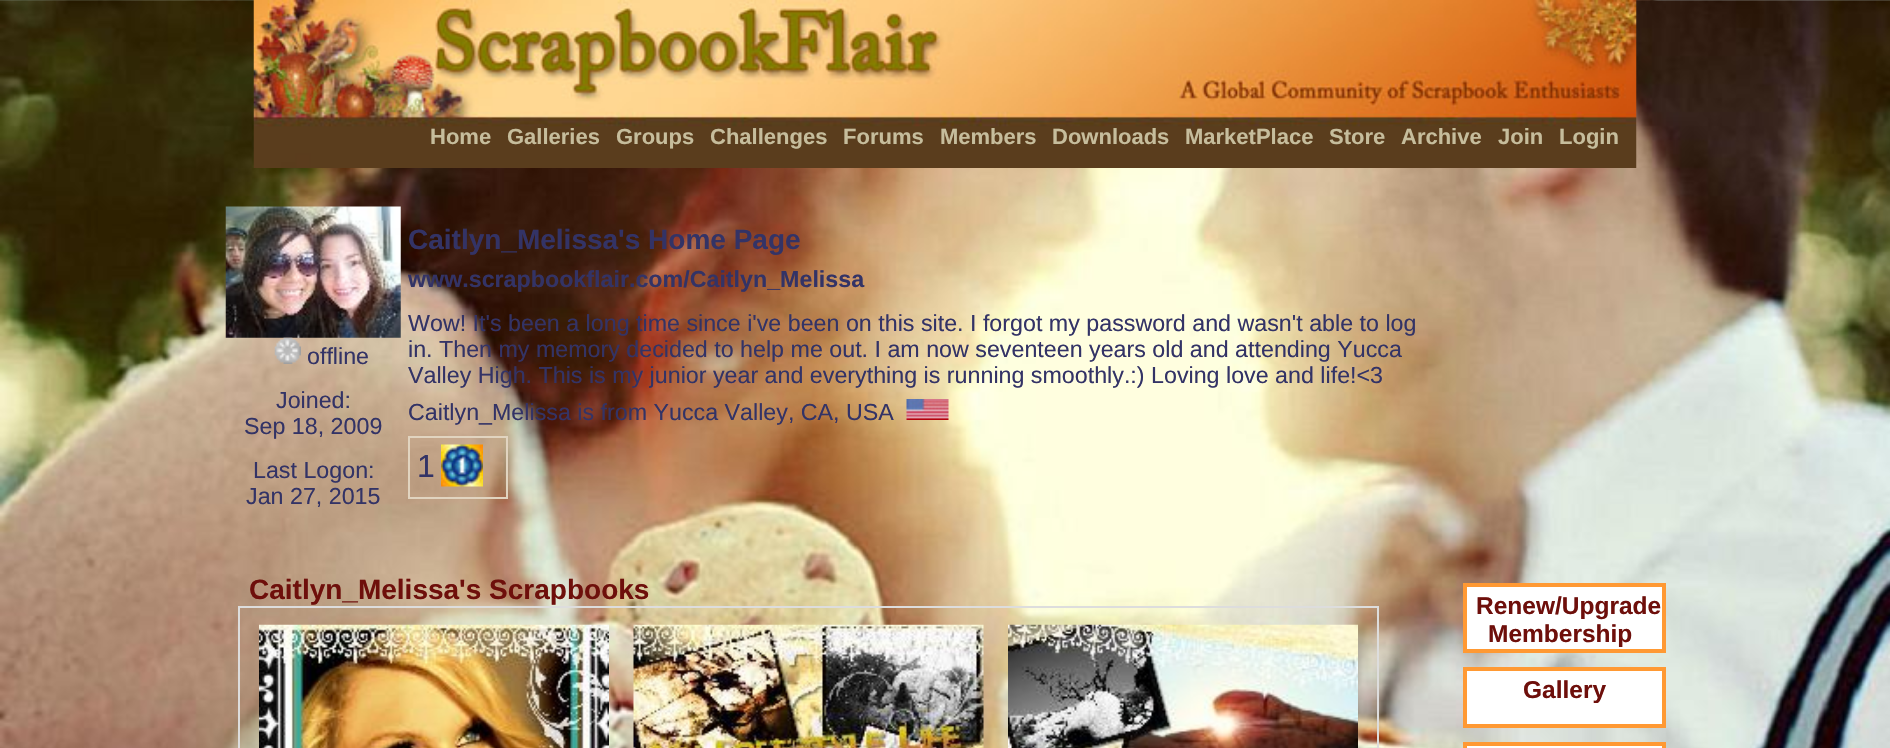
static SkFont makeFont(const char* family, int weight, float size, bool italic = false) {
  SkFontStyle style(weight, SkFontStyle::kNormal_Width,
    italic ? SkFontStyle::kItalic_Slant : SkFontStyle::kUpright_Slant);
  SkFont result(fontMgr->matchFamilyStyle(family, style), size);
  result.setSubpixel(true);
  return result;
}

static void text(SkCanvas* c, const char* s, float x, float y, const SkFont& font, SkColor color) {
  SkPaint ink(SkColor4f::FromColor(color));
  ink.setAntiAlias(true);
  c->drawString(s, x, y, font, ink);
}

static void picture(SkCanvas* c, const char* path, float l, float t, float r, float b) {
  auto image = SkImages::DeferredFromEncodedData(SkData::MakeFromFileName(path));
  c->drawImageRect(image, SkRect::MakeLTRB(l, t, r, b), SkSamplingOptions());
}

void draw(SkCanvas* c) {
  SkPaint paint;
  paint.setAntiAlias(true);
  c->clear(0xffffffff);
  picture(c, "img_01.png", 0, 0, 1890, 748);
  picture(c, "img_02.png", 253, 0, 1637, 168);
  SkFont face1 = makeFont("Liberation Sans", 700, 22);
  text(c, "Home", 430, 144, face1, 0xffc6bd9c);
  text(c, "Galleries", 507, 144, face1, 0xffc6bd9c);
  text(c, "Groups", 616, 144, face1, 0xffc6bd9c);
  text(c, "Challenges", 710, 144, face1, 0xffc6bd9c);
  text(c, "Forums", 843, 144, face1, 0xffc6bd9c);
  text(c, "Members", 940, 144, face1, 0xffc6bd9c);
  text(c, "Downloads", 1052, 144, face1, 0xffc6bd9c);
  text(c, "MarketPlace", 1185, 144, face1, 0xffc6bd9c);
  text(c, "Store", 1329, 144, face1, 0xffc6bd9c);
  text(c, "Archive", 1401, 144, face1, 0xffc6bd9c);
  text(c, "Join", 1498, 144, face1, 0xffc6bd9c);
  text(c, "Login", 1559, 144, face1, 0xffc6bd9c);
  picture(c, "img_03.png", 225, 206, 401, 338);
  picture(c, "img_04.png", 274, 337, 301, 364);
  SkFont face2 = makeFont("Liberation Sans", 400, 23.25f);
  text(c, "offline", 307, 364, face2, 0xff333366);
  text(c, "Joined:", 276, 408, face2, 0xff333366);
  text(c, "Sep 18, 2009", 244, 434, face2, 0xff333366);
  text(c, "Last Logon:", 253, 478, face2, 0xff333366);
  text(c, "Jan 27, 2015", 246, 504, face2, 0xff333366);
  SkFont face3 = makeFont("Liberation Sans", 700, 28);
  text(c, "Caitlyn_Melissa's Home Page", 408, 249, face3, 0xff333366);
  SkFont face4 = makeFont("Liberation Sans", 700, 23.25f);
  text(c, "www.scrapbookflair.com/Caitlyn_Melissa", 408, 287, face4, 0xff333366);
  text(c, "Wow! It's been a long time since i've been on this site. I forgot my password and wasn't able to log", 408, 331, face2, 0xff333366);
  text(c, "in. Then my memory decided to help me out. I am now seventeen years old and attending Yucca", 408, 357, face2, 0xff333366);
  text(c, "Valley High. This is my junior year and everything is running smoothly.:) Loving love and life!<3", 408, 383, face2, 0xff333366);
  text(c, "Caitlyn_Melissa is from Yucca Valley, CA, USA", 408, 420, face2, 0xff333366);
  picture(c, "img_05.png", 906, 399, 949, 420);
  paint.setStyle(SkPaint::kStroke_Style);
  paint.setStrokeWidth(2);
  paint.setColor(0xffe1d4c0);
  c->drawRect(SkRect::MakeLTRB(409, 437, 507, 498), paint);
  SkFont face5 = makeFont("Liberation Sans", 400, 32);
  text(c, "1", 417, 477, face5, 0xff333366);
  picture(c, "img_06.png", 441, 444, 483, 487);
  text(c, "Caitlyn_Melissa's Scrapbooks", 249, 599, face3, 0xff6e0f0b);
  paint.setColor(0xffdddddd);
  c->drawRect(SkRect::MakeLTRB(239, 607, 1378, 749), paint);
  picture(c, "img_07.png", 259, 624, 609, 748);
  picture(c, "img_08.png", 633, 624, 984, 748);
  picture(c, "img_09.png", 1008, 624, 1358, 748);
  paint.setStyle(SkPaint::kFill_Style);
  paint.setColor(0xffffffff);
  c->drawRect(SkRect::MakeLTRB(1465, 585, 1664, 651), paint);
  paint.setStyle(SkPaint::kStroke_Style);
  paint.setStrokeWidth(4);
  paint.setColor(0xffff9933);
  c->drawRect(SkRect::MakeLTRB(1465, 585, 1664, 651), paint);
  SkFont face6 = makeFont("Liberation Sans", 700, 24.5f);
  text(c, "Renew/Upgrade", 1476, 614, face6, 0xff6e0f0b);
  text(c, "Membership", 1488, 642, face6, 0xff6e0f0b);
  paint.setStyle(SkPaint::kFill_Style);
  paint.setColor(0xffffffff);
  c->drawRect(SkRect::MakeLTRB(1465, 669, 1664, 726), paint);
  paint.setStyle(SkPaint::kStroke_Style);
  paint.setColor(0xffff9933);
  c->drawRect(SkRect::MakeLTRB(1465, 669, 1664, 726), paint);
  text(c, "Gallery", 1523, 698, face6, 0xff6e0f0b);
  paint.setStyle(SkPaint::kFill_Style);
  paint.setColor(0xffffffff);
  c->drawRect(SkRect::MakeLTRB(1465, 744, 1664, 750), paint);
  paint.setStyle(SkPaint::kStroke_Style);
  paint.setColor(0xffff9933);
  c->drawRect(SkRect::MakeLTRB(1465, 744, 1664, 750), paint);
}
